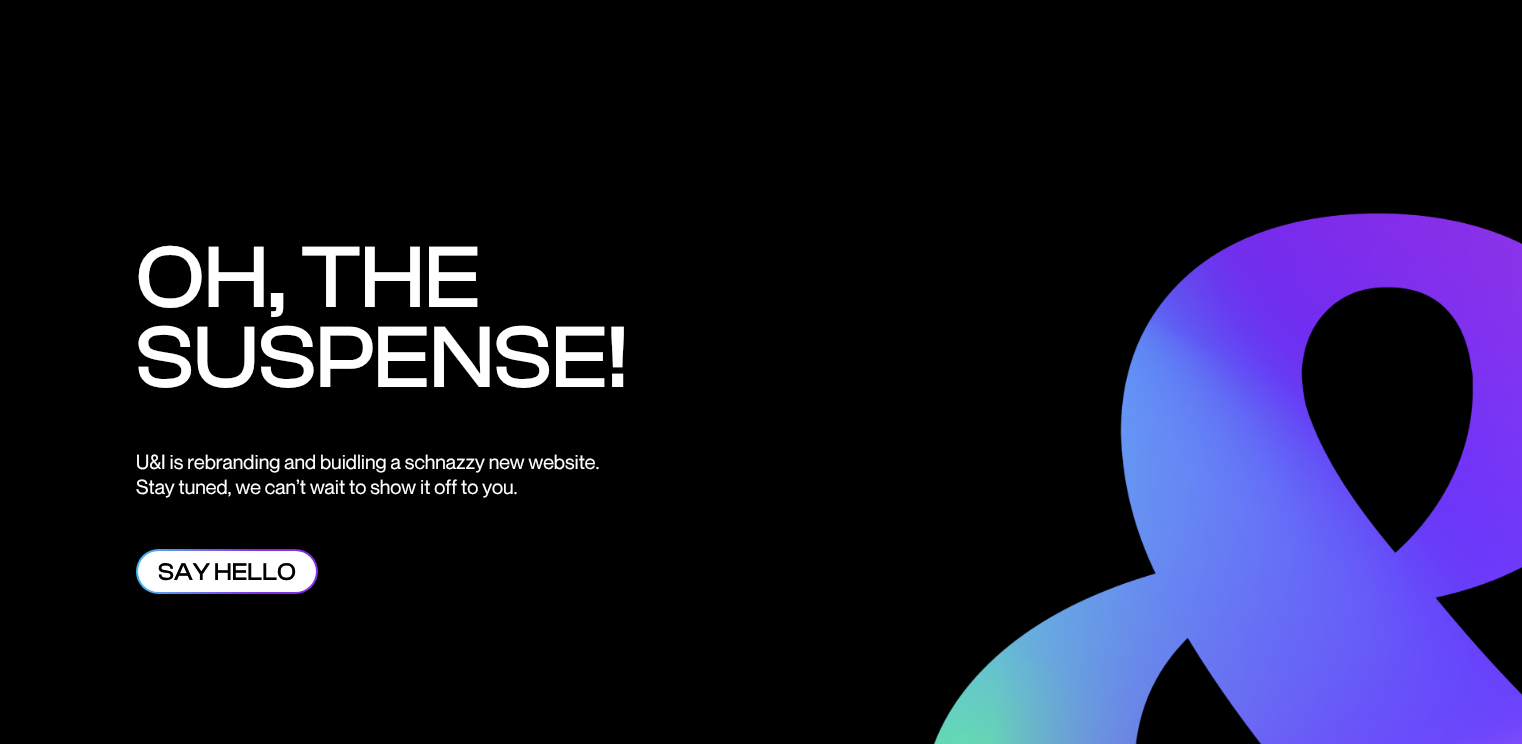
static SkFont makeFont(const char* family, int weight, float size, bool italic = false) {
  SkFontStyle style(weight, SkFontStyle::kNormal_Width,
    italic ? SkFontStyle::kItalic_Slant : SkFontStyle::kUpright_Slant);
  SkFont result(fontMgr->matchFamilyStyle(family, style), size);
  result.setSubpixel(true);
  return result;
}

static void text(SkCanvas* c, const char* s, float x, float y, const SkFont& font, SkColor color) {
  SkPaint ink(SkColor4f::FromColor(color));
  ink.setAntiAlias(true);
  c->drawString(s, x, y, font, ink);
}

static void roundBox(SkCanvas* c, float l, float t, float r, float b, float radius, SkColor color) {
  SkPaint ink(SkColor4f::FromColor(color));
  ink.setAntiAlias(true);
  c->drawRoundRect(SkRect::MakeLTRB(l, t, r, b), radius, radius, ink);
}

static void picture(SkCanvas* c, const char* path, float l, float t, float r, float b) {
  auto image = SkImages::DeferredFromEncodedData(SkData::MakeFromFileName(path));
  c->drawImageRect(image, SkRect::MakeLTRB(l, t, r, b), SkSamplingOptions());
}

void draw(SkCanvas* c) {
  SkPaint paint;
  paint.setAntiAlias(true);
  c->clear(0xff000000);
  picture(c, "img_01.png", 934, 213, 1522, 744);
  SkFont face1 = makeFont("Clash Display", 500, 90);
  text(c, "OH, THE", 136, 307, face1, 0xffffffff);
  text(c, "SUSPENSE!", 136, 387, face1, 0xffffffff);
  SkFont face2 = makeFont("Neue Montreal", 400, 20);
  text(c, "U&I is rebranding and buidling a schnazzy new website.", 136, 469, face2, 0xffffffff);
  text(c, "Stay tuned, we can’t wait to show it off to you.", 136, 494, face2, 0xffffffff);
  {
    const SkColor colors[] = {0xff49baf2, 0xff832de9};
    const float stops[] = {0, 0.67f};
    const SkPoint ends[] = {{136, 572}, {318, 572}};
    paint.setShader(SkGradientShader::MakeLinear(ends, colors, stops, 2, SkTileMode::kClamp));
    paint.setAlpha(255);
  }
  c->drawRoundRect(SkRect::MakeLTRB(136, 549, 318, 594), 22.5f, 22.5f, paint);
  roundBox(c, 138, 551, 316, 592, 20.5f, 0xffffffff);
  SkFont face3 = makeFont("Clash Display", 500, 25);
  text(c, "SAY HELLO", 158, 580, face3, 0xff000000);
}
